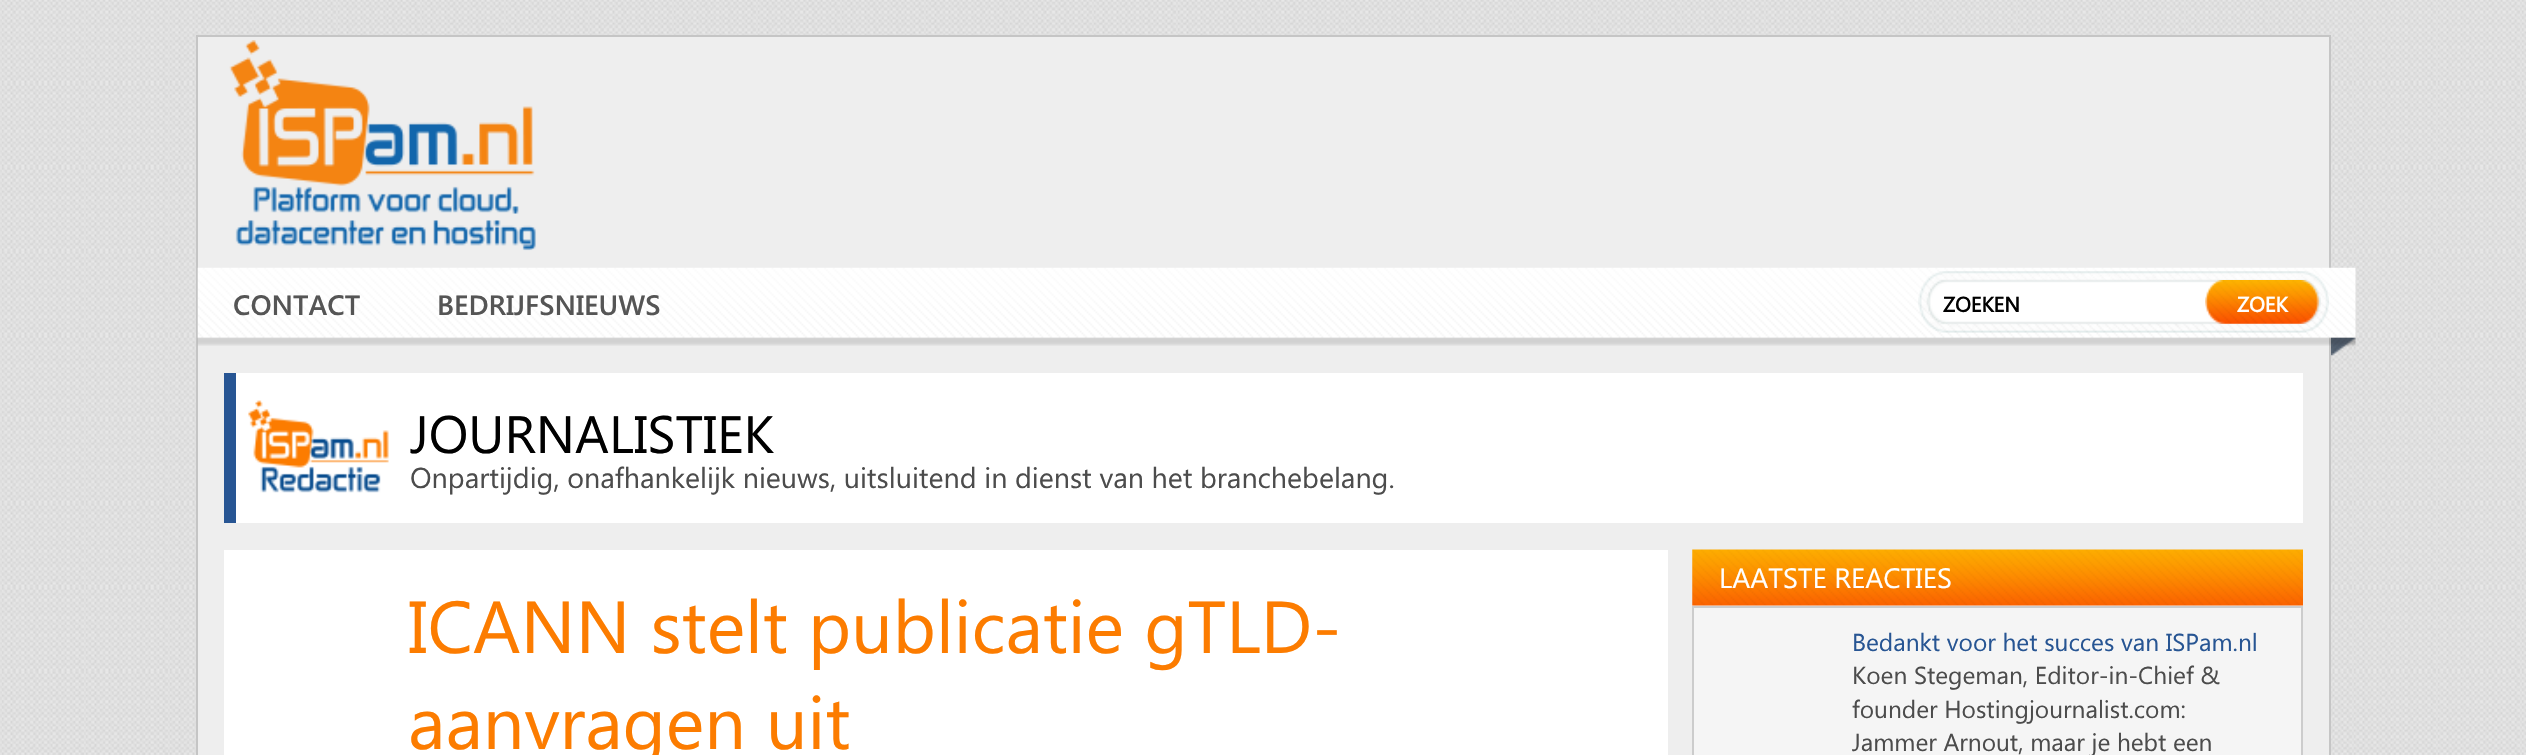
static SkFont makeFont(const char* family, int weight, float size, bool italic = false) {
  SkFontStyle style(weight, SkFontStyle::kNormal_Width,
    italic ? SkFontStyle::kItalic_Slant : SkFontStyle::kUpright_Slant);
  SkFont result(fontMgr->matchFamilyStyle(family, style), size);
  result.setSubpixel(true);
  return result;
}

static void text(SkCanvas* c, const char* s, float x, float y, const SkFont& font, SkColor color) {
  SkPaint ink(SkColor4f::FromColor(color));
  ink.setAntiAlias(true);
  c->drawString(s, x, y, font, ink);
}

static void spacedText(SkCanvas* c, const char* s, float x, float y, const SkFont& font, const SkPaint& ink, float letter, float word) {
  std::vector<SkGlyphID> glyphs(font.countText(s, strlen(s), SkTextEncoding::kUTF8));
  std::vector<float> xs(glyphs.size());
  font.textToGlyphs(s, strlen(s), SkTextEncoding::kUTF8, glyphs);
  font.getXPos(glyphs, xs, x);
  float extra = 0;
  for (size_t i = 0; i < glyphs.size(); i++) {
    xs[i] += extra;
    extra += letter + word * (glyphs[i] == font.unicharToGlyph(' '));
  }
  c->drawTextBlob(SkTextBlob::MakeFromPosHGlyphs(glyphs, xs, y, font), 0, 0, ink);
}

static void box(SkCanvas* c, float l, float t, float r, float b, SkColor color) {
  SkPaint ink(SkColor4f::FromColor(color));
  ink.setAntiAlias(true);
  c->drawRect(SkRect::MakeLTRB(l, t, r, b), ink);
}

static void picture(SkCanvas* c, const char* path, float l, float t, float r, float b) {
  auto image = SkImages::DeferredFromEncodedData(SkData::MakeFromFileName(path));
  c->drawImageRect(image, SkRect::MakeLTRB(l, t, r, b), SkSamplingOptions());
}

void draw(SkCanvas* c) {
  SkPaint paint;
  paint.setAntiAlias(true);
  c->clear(0xffffffff);
  picture(c, "img_01.png", 0, 0, 2526, 755);
  paint.setColor(0xffeeeeee);
  c->drawRect(SkRect::MakeLTRB(197, 36, 2330, 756), paint);
  paint.setStyle(SkPaint::kStroke_Style);
  paint.setStrokeWidth(2);
  paint.setColor(0xffc5c5c5);
  c->drawRect(SkRect::MakeLTRB(197, 36, 2330, 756), paint);
  picture(c, "img_02.png", 229, 40, 536, 251);
  picture(c, "img_03.png", 197, 267, 2356, 346);
  SkFont face1 = makeFont("Segoe UI", 600, 28);
  text(c, "CONTACT", 233, 315, face1, 0xff555555);
  text(c, "BEDRIJFSNIEUWS", 437, 315, face1, 0xff555555);
  picture(c, "img_04.png", 1918, 271, 2329, 333);
  box(c, 1939, 318, 1940, 319, 0xffffffff);
  SkFont face2 = makeFont("Segoe UI", 700, 21);
  text(c, "ZOEKEN", 1943, 312, face2, 0xff000000);
  picture(c, "img_05.png", 2205, 280, 2319, 324);
  text(c, "ZOEK", 2237, 312, face2, 0xffffffff);
  picture(c, "img_06.png", 2331, 337, 2356, 356);
  box(c, 236, 373, 2303, 523, 0xffffffff);
  box(c, 224, 373, 236, 523, 0xff275593);
  picture(c, "img_07.png", 248, 400, 389, 493);
  SkFont face3 = makeFont("Segoe UI", 400, 52.5f);
  text(c, "JOURNALISTIEK", 410, 453, face3, 0xff000000);
  SkFont face4 = makeFont("Segoe UI", 400, 28.65f);
  paint.setStyle(SkPaint::kFill_Style);
  paint.setColor(0xff4c4c4c);
  spacedText(c, "Onpartijdig, onafhankelijk nieuws, uitsluitend in dienst van het branchebelang.", 410, 488, face4, paint, 0, -0.25f);
  box(c, 224, 550, 1668, 755, 0xffffffff);
  SkFont face5 = makeFont("Segoe UI", 400, 73.5f);
  text(c, "ICANN stelt publicatie gTLD-", 408, 653, face5, 0xfffc7c00);
  text(c, "aanvragen uit", 408, 749, face5, 0xfffc7c00);
  picture(c, "img_08.png", 1692, 549, 2303, 606);
  SkFont face6 = makeFont("Segoe UI", 400, 28);
  text(c, "LAATSTE REACTIES", 1719, 588, face6, 0xffffffff);
  paint.setColor(0xfff5f5f5);
  c->drawRect(SkRect::MakeLTRB(1693, 607, 2302, 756), paint);
  paint.setStyle(SkPaint::kStroke_Style);
  paint.setColor(0xffcccccc);
  c->drawRect(SkRect::MakeLTRB(1693, 607, 2302, 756), paint);
  SkFont face7 = makeFont("Segoe UI", 400, 24.5f);
  text(c, "Bedankt voor het succes van ISPam.nl", 1852, 651, face7, 0xff275593);
  text(c, "Koen Stegeman, Editor-in-Chief &", 1852, 684, face7, 0xff4c4c4c);
  text(c, "founder Hostingjournalist.com:", 1852, 718, face7, 0xff4c4c4c);
  text(c, "Jammer Arnout, maar je hebt een", 1852, 751, face7, 0xff4c4c4c);
}
